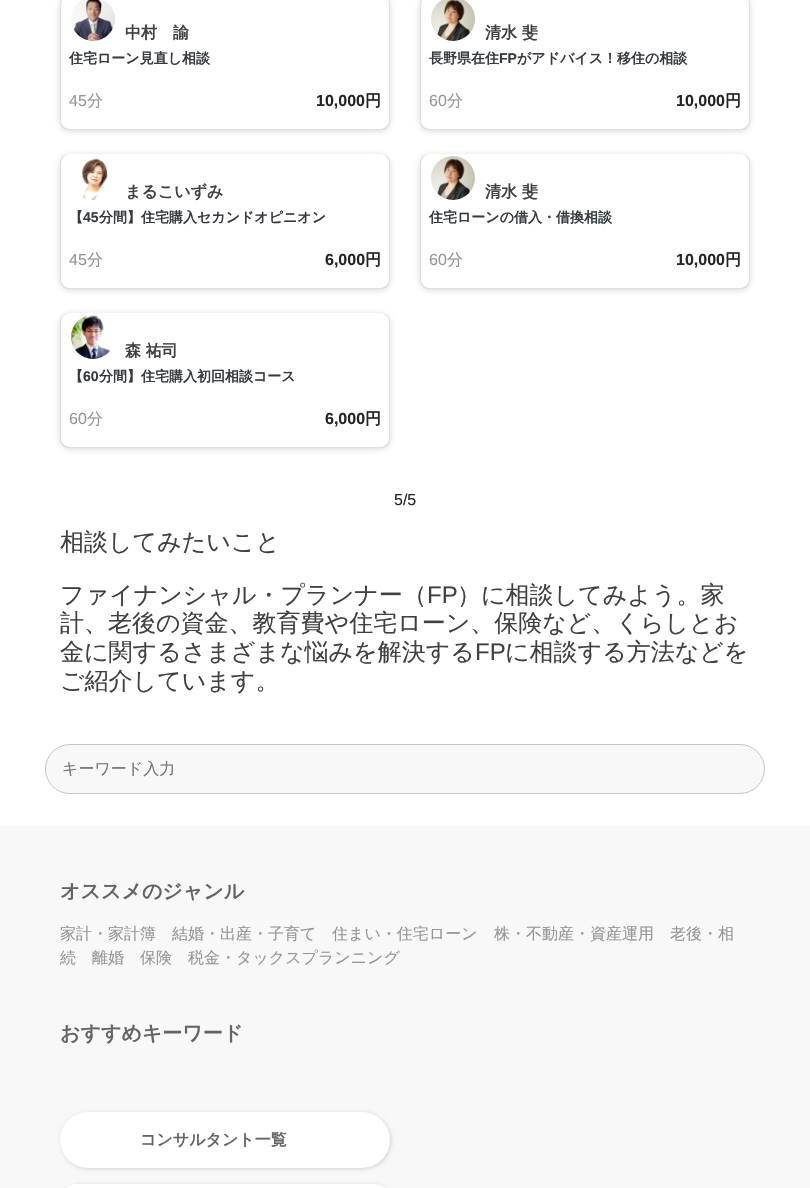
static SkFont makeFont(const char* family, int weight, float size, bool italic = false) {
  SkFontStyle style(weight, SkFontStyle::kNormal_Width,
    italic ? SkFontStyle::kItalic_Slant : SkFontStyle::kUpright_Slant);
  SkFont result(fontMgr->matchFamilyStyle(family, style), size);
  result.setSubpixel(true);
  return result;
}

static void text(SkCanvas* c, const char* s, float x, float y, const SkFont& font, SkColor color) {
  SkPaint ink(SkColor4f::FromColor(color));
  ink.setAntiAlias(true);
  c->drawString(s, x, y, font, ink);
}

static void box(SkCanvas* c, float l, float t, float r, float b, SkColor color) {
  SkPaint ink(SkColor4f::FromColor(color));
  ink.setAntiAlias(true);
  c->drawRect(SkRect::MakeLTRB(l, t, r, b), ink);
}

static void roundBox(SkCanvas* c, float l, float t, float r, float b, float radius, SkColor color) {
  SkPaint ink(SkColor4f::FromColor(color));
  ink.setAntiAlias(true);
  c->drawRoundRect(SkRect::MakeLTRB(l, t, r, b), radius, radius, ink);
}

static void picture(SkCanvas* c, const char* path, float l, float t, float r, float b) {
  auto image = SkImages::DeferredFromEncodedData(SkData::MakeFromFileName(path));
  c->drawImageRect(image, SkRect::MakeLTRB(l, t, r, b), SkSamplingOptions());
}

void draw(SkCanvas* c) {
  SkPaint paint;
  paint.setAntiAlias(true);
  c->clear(0xffffffff);
  paint.setColor(0x80aeaeae);
  paint.setMaskFilter(SkMaskFilter::MakeBlur(kNormal_SkBlurStyle, 3));
  c->drawRoundRect(SkRect::MakeLTRB(60, -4, 390, 131), 10, 10, paint);
  paint.setMaskFilter(nullptr);
  roundBox(c, 60, -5, 390, 130, 10, 0xffffffff);
  paint.setColor(0x1f000000);
  c->drawPath(SkPathBuilder(SkPathFillType::kEvenOdd).moveTo(70, -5).lineTo(380, -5).cubicTo(386, -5, 390, -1, 390, 5).lineTo(390, 120).cubicTo(390, 126, 386, 130, 380, 130).lineTo(70, 130).cubicTo(64, 130, 60, 126, 60, 120).lineTo(60, 5).cubicTo(60, -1, 64, -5, 70, -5).close().moveTo(70, -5).lineTo(380, -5).cubicTo(385, -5, 389, -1, 389, 5).lineTo(389, 120).cubicTo(389, 125, 385, 129, 380, 129).lineTo(70, 129).cubicTo(65, 129, 61, 125, 61, 120).lineTo(61, 5).cubicTo(61, -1, 65, -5, 70, -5).close().detach(), paint);
  picture(c, "img_01.png", 71, 0, 115, 41);
  SkFont face1 = makeFont("WenQuanYi Zen Hei", 700, 16);
  text(c, "中村　諭", 125, 38, face1, 0xff404040);
  SkFont face2 = makeFont("WenQuanYi Zen Hei", 700, 14);
  text(c, "住宅ローン見直し相談", 69, 63, face2, 0xff343a40);
  SkFont face3 = makeFont("Liberation Sans", 400, 16);
  text(c, "45", 69, 106, face3, 0xff959595);
  SkFont face4 = makeFont("WenQuanYi Zen Hei", 500, 16);
  text(c, "分", 87, 106, face4, 0xff959595);
  SkFont face5 = makeFont("Liberation Sans", 700, 16);
  text(c, "10,000", 316, 106, face5, 0xff212529);
  text(c, "円", 365, 106, face1, 0xff212529);
  paint.setColor(0x80aeaeae);
  paint.setMaskFilter(SkMaskFilter::MakeBlur(kNormal_SkBlurStyle, 3));
  c->drawRoundRect(SkRect::MakeLTRB(420, -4, 750, 131), 10, 10, paint);
  paint.setMaskFilter(nullptr);
  roundBox(c, 420, -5, 750, 130, 10, 0xffffffff);
  paint.setColor(0x1f000000);
  c->drawPath(SkPathBuilder(SkPathFillType::kEvenOdd).moveTo(430, -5).lineTo(740, -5).cubicTo(746, -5, 750, -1, 750, 5).lineTo(750, 120).cubicTo(750, 126, 746, 130, 740, 130).lineTo(430, 130).cubicTo(424, 130, 420, 126, 420, 120).lineTo(420, 5).cubicTo(420, -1, 424, -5, 430, -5).close().moveTo(430, -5).lineTo(740, -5).cubicTo(745, -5, 749, -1, 749, 5).lineTo(749, 120).cubicTo(749, 125, 745, 129, 740, 129).lineTo(430, 129).cubicTo(425, 129, 421, 125, 421, 120).lineTo(421, 5).cubicTo(421, -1, 425, -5, 430, -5).close().detach(), paint);
  picture(c, "img_02.png", 431, 0, 475, 41);
  text(c, "清水 斐", 485, 38, face1, 0xff404040);
  text(c, "長野県在住", 429, 63, face2, 0xff343a40);
  SkFont face6 = makeFont("Liberation Sans", 700, 14);
  text(c, "FP", 499, 63, face6, 0xff343a40);
  text(c, "がアドバイス！移住の相談", 517, 63, face2, 0xff343a40);
  text(c, "60", 429, 106, face3, 0xff959595);
  text(c, "分", 447, 106, face4, 0xff959595);
  text(c, "10,000", 676, 106, face5, 0xff212529);
  text(c, "円", 725, 106, face1, 0xff212529);
  paint.setColor(0x80aeaeae);
  paint.setMaskFilter(SkMaskFilter::MakeBlur(kNormal_SkBlurStyle, 3));
  c->drawRoundRect(SkRect::MakeLTRB(60, 155, 390, 290), 10, 10, paint);
  paint.setMaskFilter(nullptr);
  roundBox(c, 60, 154, 390, 289, 10, 0xffffffff);
  paint.setColor(0x1f000000);
  c->drawPath(SkPathBuilder(SkPathFillType::kEvenOdd).moveTo(70, 154).lineTo(380, 154).cubicTo(386, 154, 390, 158, 390, 164).lineTo(390, 279).cubicTo(390, 285, 386, 289, 380, 289).lineTo(70, 289).cubicTo(64, 289, 60, 285, 60, 279).lineTo(60, 164).cubicTo(60, 158, 64, 154, 70, 154).close().moveTo(70, 154).lineTo(380, 154).cubicTo(385, 154, 389, 158, 389, 164).lineTo(389, 279).cubicTo(389, 284, 385, 288, 380, 288).lineTo(70, 288).cubicTo(65, 288, 61, 284, 61, 279).lineTo(61, 164).cubicTo(61, 158, 65, 154, 70, 154).close().detach(), paint);
  picture(c, "img_03.png", 81, 158, 108, 200);
  text(c, "まるこいずみ", 125, 197, face1, 0xff404040);
  text(c, "【", 69, 222, face2, 0xff343a40);
  text(c, "45", 83, 222, face6, 0xff343a40);
  text(c, "分間】住宅購入セカンドオピニオン", 99, 222, face2, 0xff343a40);
  text(c, "45", 69, 265, face3, 0xff959595);
  text(c, "分", 87, 265, face4, 0xff959595);
  text(c, "6,000", 325, 265, face5, 0xff212529);
  text(c, "円", 365, 265, face1, 0xff212529);
  paint.setColor(0x80aeaeae);
  paint.setMaskFilter(SkMaskFilter::MakeBlur(kNormal_SkBlurStyle, 3));
  c->drawRoundRect(SkRect::MakeLTRB(420, 155, 750, 290), 10, 10, paint);
  paint.setMaskFilter(nullptr);
  roundBox(c, 420, 154, 750, 289, 10, 0xffffffff);
  paint.setColor(0x1f000000);
  c->drawPath(SkPathBuilder(SkPathFillType::kEvenOdd).moveTo(430, 154).lineTo(740, 154).cubicTo(746, 154, 750, 158, 750, 164).lineTo(750, 279).cubicTo(750, 285, 746, 289, 740, 289).lineTo(430, 289).cubicTo(424, 289, 420, 285, 420, 279).lineTo(420, 164).cubicTo(420, 158, 424, 154, 430, 154).close().moveTo(430, 154).lineTo(740, 154).cubicTo(745, 154, 749, 158, 749, 164).lineTo(749, 279).cubicTo(749, 284, 745, 288, 740, 288).lineTo(430, 288).cubicTo(425, 288, 421, 284, 421, 279).lineTo(421, 164).cubicTo(421, 158, 425, 154, 430, 154).close().detach(), paint);
  picture(c, "img_04.png", 431, 156, 475, 200);
  text(c, "清水 斐", 485, 197, face1, 0xff404040);
  text(c, "住宅ローンの借入・借換相談", 429, 222, face2, 0xff343a40);
  text(c, "60", 429, 265, face3, 0xff959595);
  text(c, "分", 447, 265, face4, 0xff959595);
  text(c, "10,000", 676, 265, face5, 0xff212529);
  text(c, "円", 725, 265, face1, 0xff212529);
  paint.setColor(0x80aeaeae);
  paint.setMaskFilter(SkMaskFilter::MakeBlur(kNormal_SkBlurStyle, 3));
  c->drawRoundRect(SkRect::MakeLTRB(60, 314, 390, 449), 10, 10, paint);
  paint.setMaskFilter(nullptr);
  roundBox(c, 60, 313, 390, 448, 10, 0xffffffff);
  paint.setColor(0x1f000000);
  c->drawPath(SkPathBuilder(SkPathFillType::kEvenOdd).moveTo(70, 313).lineTo(380, 313).cubicTo(386, 313, 390, 317, 390, 323).lineTo(390, 438).cubicTo(390, 444, 386, 448, 380, 448).lineTo(70, 448).cubicTo(64, 448, 60, 444, 60, 438).lineTo(60, 323).cubicTo(60, 317, 64, 313, 70, 313).close().moveTo(70, 313).lineTo(380, 313).cubicTo(385, 313, 389, 317, 389, 323).lineTo(389, 438).cubicTo(389, 443, 385, 447, 380, 447).lineTo(70, 447).cubicTo(65, 447, 61, 443, 61, 438).lineTo(61, 323).cubicTo(61, 317, 65, 313, 70, 313).close().detach(), paint);
  picture(c, "img_05.png", 71, 315, 111, 359);
  text(c, "森 祐司", 125, 356, face1, 0xff404040);
  text(c, "【", 69, 381, face2, 0xff343a40);
  text(c, "60", 83, 381, face6, 0xff343a40);
  text(c, "分間】住宅購入初回相談コース", 99, 381, face2, 0xff343a40);
  text(c, "60", 69, 424, face3, 0xff959595);
  text(c, "分", 87, 424, face4, 0xff959595);
  text(c, "6,000", 325, 424, face5, 0xff212529);
  text(c, "円", 365, 424, face1, 0xff212529);
  text(c, "5/5", 394, 505, face3, 0xff212529);
  SkFont face7 = makeFont("WenQuanYi Zen Hei", 500, 24);
  text(c, "相談してみたいこと", 60, 550, face7, 0xff404040);
  text(c, "ファイナンシャル・プランナー（", 60, 603, face7, 0xff404040);
  SkFont face8 = makeFont("Liberation Sans", 400, 24);
  text(c, "FP", 427, 603, face8, 0xff404040);
  text(c, "）に相談してみよう。家", 457, 603, face7, 0xff404040);
  text(c, "計、老後の資金、教育費や住宅ローン、保険など、くらしとお", 60, 631, face7, 0xff404040);
  text(c, "金に関するさまざまな悩みを解決する", 60, 660, face7, 0xff404040);
  text(c, "FP", 475, 660, face8, 0xff404040);
  text(c, "に相談する方法などを", 505, 660, face7, 0xff404040);
  text(c, "ご紹介しています。", 60, 689, face7, 0xff404040);
  paint.setColor(0xfff8f8f8);
  c->drawRoundRect(SkRect::MakeLTRB(45.5f, 744.5f, 764.5f, 793.5f), 24.5f, 24.5f, paint);
  paint.setStyle(SkPaint::kStroke_Style);
  paint.setStrokeWidth(1);
  paint.setColor(0xffc6c6c6);
  c->drawRoundRect(SkRect::MakeLTRB(45.5f, 744.5f, 764.5f, 793.5f), 24.5f, 24.5f, paint);
  text(c, "キーワード入力", 62, 774, face4, 0xff757575);
  box(c, 0, 826, 810, 1188, 0xfff8f8f8);
  SkFont face9 = makeFont("WenQuanYi Zen Hei", 700, 20);
  text(c, "オススメのジャンル", 60, 898, face9, 0xff646464);
  text(c, "家計・家計簿", 60, 939, face4, 0xff959595);
  text(c, "結婚・出産・子育て", 172, 939, face4, 0xff959595);
  text(c, "住まい・住宅ローン", 332, 939, face4, 0xff959595);
  text(c, "株・不動産・資産運用", 494, 939, face4, 0xff959595);
  text(c, "老後・相", 670, 939, face4, 0xff959595);
  text(c, "続", 60, 963, face4, 0xff959595);
  text(c, "離婚", 92, 963, face4, 0xff959595);
  text(c, "保険", 140, 963, face4, 0xff959595);
  text(c, "税金・タックスプランニング", 188, 963, face4, 0xff959595);
  text(c, "おすすめキーワード", 60, 1040, face9, 0xff646464);
  paint.setStyle(SkPaint::kFill_Style);
  paint.setColor(0xffd2d2d2);
  paint.setMaskFilter(SkMaskFilter::MakeBlur(kNormal_SkBlurStyle, 2));
  c->drawRoundRect(SkRect::MakeLTRB(61, 1113, 391, 1169), 28, 28, paint);
  paint.setMaskFilter(nullptr);
  roundBox(c, 60, 1112, 390, 1168, 28, 0xffffffff);
  text(c, "コンサルタント一覧", 140, 1145, face1, 0xff646464);
  paint.setMaskFilter(SkMaskFilter::MakeBlur(kNormal_SkBlurStyle, 2));
  c->drawRoundRect(SkRect::MakeLTRB(61, 1185, 391, 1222), 28, 28, paint);
  paint.setMaskFilter(nullptr);
  roundBox(c, 60, 1184, 390, 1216, 28, 0xffffffff);
}
